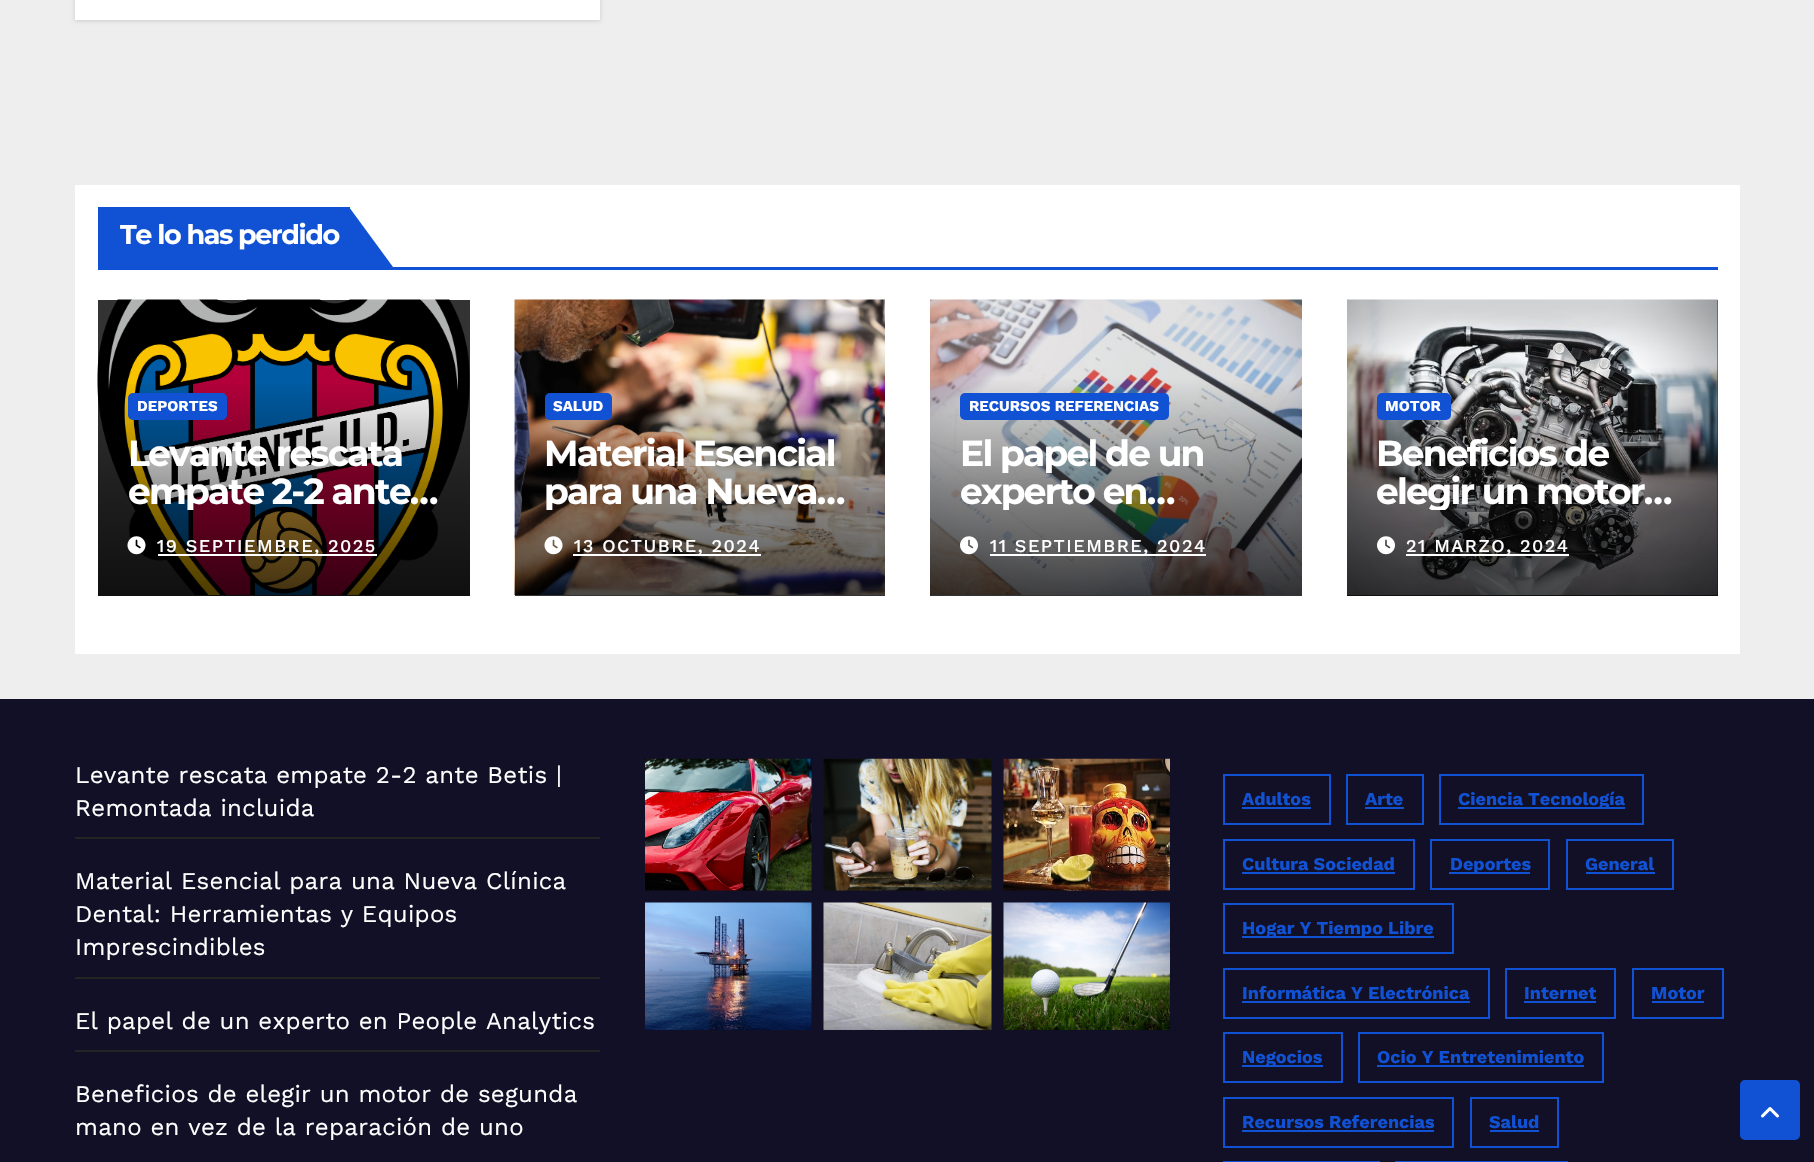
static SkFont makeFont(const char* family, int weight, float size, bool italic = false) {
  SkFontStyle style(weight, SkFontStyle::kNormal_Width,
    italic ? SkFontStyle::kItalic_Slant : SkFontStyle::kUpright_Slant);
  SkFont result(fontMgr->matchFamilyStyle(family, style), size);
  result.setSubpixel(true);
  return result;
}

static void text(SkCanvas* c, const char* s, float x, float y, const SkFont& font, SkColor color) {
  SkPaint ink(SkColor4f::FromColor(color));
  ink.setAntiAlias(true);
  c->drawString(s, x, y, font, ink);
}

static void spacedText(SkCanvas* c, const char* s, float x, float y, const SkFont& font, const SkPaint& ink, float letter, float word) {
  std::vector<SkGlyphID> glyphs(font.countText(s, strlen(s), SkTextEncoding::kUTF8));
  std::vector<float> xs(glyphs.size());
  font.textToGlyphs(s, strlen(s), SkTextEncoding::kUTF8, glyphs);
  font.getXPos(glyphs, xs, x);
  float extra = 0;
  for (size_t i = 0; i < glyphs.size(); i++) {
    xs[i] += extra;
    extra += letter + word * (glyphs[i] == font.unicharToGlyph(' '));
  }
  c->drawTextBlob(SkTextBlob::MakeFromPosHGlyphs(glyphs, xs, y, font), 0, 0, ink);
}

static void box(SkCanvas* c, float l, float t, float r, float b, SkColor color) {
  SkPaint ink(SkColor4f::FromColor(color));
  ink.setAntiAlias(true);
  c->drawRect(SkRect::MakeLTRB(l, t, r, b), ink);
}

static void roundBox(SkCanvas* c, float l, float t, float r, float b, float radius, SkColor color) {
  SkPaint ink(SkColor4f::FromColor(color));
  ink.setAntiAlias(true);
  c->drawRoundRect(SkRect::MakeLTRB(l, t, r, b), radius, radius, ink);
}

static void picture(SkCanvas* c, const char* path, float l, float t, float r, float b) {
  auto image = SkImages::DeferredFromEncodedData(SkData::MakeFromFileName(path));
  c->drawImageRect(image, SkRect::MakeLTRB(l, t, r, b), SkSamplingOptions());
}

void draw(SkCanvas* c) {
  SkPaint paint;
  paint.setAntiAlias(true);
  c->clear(0xffeeeeee);
  paint.setColor(0x26000000);
  paint.setMaskFilter(SkMaskFilter::MakeBlur(kNormal_SkBlurStyle, 2));
  c->drawRect(SkRect::MakeLTRB(75, -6, 600, 21), paint);
  paint.setMaskFilter(nullptr);
  box(c, 75, 0, 600, 20, 0xffffffff);
  box(c, 75, 185, 1740, 654, 0xffffffff);
  box(c, 98, 267, 1718, 270, 0xff1151d3);
  box(c, 98, 207, 350, 267, 0xff1151d3);
  SkFont face1 = makeFont("Montserrat", 700, 27);
  paint.setColor(0xffffffff);
  spacedText(c, "Te lo has perdido", 120, 244, face1, paint, -1.4f, 0);
  paint.setColor(0xff1151d3);
  c->drawPath(SkPathBuilder().moveTo(349, 207).lineTo(349, 268).lineTo(393, 268).lineTo(393, 267).close().detach(), paint);
  box(c, 98, 300, 470, 596, 0xff333333);
  picture(c, "img_01.png", 97, 299, 470, 595);
  {
    const SkColor colors[] = {0x00000000, 0x66000000, 0xb3000000};
    const float stops[] = {0, 0.5f, 1};
    const SkPoint ends[] = {{284, 378}, {284, 596}};
    paint.setShader(SkGradientShader::MakeLinear(ends, colors, stops, 3, SkTileMode::kClamp));
    paint.setAlpha(255);
  }
  c->drawRect(SkRect::MakeLTRB(98, 384, 470, 596), paint);
  roundBox(c, 128, 393, 227, 420, 5, 0xff1151d3);
  SkFont face2 = makeFont("Work Sans", 700, 15);
  text(c, "DEPORTES", 137, 411, face2, 0xffffffff);
  SkFont face3 = makeFont("Montserrat", 700, 36);
  paint.setShader(nullptr);
  paint.setColor(0xffffffff);
  spacedText(c, "Levante rescata", 128, 466, face3, paint, -1.75f, 0);
  c->save();
  c->clipRect(SkRect::MakeLTRB(128, 435, 440, 510));
  spacedText(c, "empate 2-2 ante…", 128, 504, face3, paint, -1.75f, 0);
  c->restore();
  picture(c, "img_02.png", 127, 536, 146, 555);
  box(c, 158, 554, 377, 556, 0xffffffff);
  SkFont face4 = makeFont("Work Sans", 500, 18);
  spacedText(c, "19 SEPTIEMBRE, 2025", 157, 552, face4, paint, 1.5f, 0);
  box(c, 515, 595, 885, 596, 0xff333333);
  picture(c, "img_03.png", 514, 299, 885, 595);
  roundBox(c, 545, 393, 612, 420, 5, 0xff1151d3);
  text(c, "SALUD", 553, 411, face2, 0xffffffff);
  spacedText(c, "Material Esencial", 544, 466, face3, paint, -1.75f, 0);
  c->save();
  c->clipRect(SkRect::MakeLTRB(545, 435, 855, 510));
  spacedText(c, "para una Nueva…", 544, 504, face3, paint, -1.75f, 0);
  c->restore();
  picture(c, "img_04.png", 544, 536, 563, 555);
  box(c, 573, 554, 761, 556, 0xffffffff);
  spacedText(c, "13 OCTUBRE, 2024", 574, 552, face4, paint, 1.5f, 0);
  box(c, 930, 595, 1302, 596, 0xff333333);
  picture(c, "img_05.png", 930, 299, 1302, 595);
  roundBox(c, 960, 393, 1169, 420, 5, 0xff1151d3);
  text(c, "RECURSOS REFERENCIAS", 969, 411, face2, 0xffffffff);
  spacedText(c, "El papel de un", 960, 466, face3, paint, -1.75f, 0);
  c->save();
  c->clipRect(SkRect::MakeLTRB(960, 435, 1272, 510));
  spacedText(c, "experto en…", 960, 504, face3, paint, -1.75f, 0);
  c->restore();
  picture(c, "img_06.png", 960, 536, 978, 555);
  box(c, 990, 554, 1206, 556, 0xffffffff);
  spacedText(c, "11 SEPTIEMBRE, 2024", 990, 552, face4, paint, 1.5f, 0);
  box(c, 1347, 300, 1718, 596, 0xff333333);
  picture(c, "img_07.png", 1347, 299, 1718, 595);
  {
    const SkColor colors[] = {0x00000000, 0x66000000, 0xb3000000};
    const float stops[] = {0, 0.5f, 1};
    const SkPoint ends[] = {{1532, 378}, {1532, 596}};
    paint.setShader(SkGradientShader::MakeLinear(ends, colors, stops, 3, SkTileMode::kClamp));
    paint.setAlpha(255);
  }
  c->drawRect(SkRect::MakeLTRB(1347, 384, 1718, 596), paint);
  roundBox(c, 1377, 393, 1451, 420, 5, 0xff1151d3);
  text(c, "MOTOR", 1385, 411, face2, 0xffffffff);
  paint.setShader(nullptr);
  paint.setColor(0xffffffff);
  spacedText(c, "Beneficios de", 1376, 466, face3, paint, -1.75f, 0);
  c->save();
  c->clipRect(SkRect::MakeLTRB(1377, 435, 1688, 510));
  spacedText(c, "elegir un motor…", 1376, 504, face3, paint, -1.75f, 0);
  c->restore();
  picture(c, "img_08.png", 1377, 536, 1395, 555);
  box(c, 1406, 554, 1569, 556, 0xffffffff);
  spacedText(c, "21 MARZO, 2024", 1406, 552, face4, paint, 1.5f, 0);
  box(c, 0, 699, 1814, 1162, 0xff121026);
  box(c, 75, 837, 600, 839, 0xff242425);
  SkFont face5 = makeFont("Work Sans", 400, 24);
  spacedText(c, "Levante rescata empate 2-2 ante Betis |", 75, 783, face5, paint, 0.3f, 0);
  spacedText(c, "Remontada incluida", 75, 816, face5, paint, 0.3f, 0);
  box(c, 75, 977, 600, 979, 0xff242425);
  spacedText(c, "Material Esencial para una Nueva Clínica", 75, 889, face5, paint, 0.3f, 0);
  spacedText(c, "Dental: Herramientas y Equipos", 75, 922, face5, paint, 0.3f, 0);
  spacedText(c, "Imprescindibles", 75, 955, face5, paint, 0.3f, 0);
  box(c, 75, 1050, 600, 1052, 0xff242425);
  spacedText(c, "El papel de un experto en People Analytics", 75, 1029, face5, paint, 0.3f, 0);
  spacedText(c, "Beneficios de elegir un motor de segunda", 75, 1102, face5, paint, 0.3f, 0);
  spacedText(c, "mano en vez de la reparación de uno", 75, 1135, face5, paint, 0.3f, 0);
  picture(c, "img_09.png", 645, 758, 812, 891);
  picture(c, "img_10.png", 823, 758, 992, 891);
  picture(c, "img_11.png", 1003, 758, 1170, 891);
  picture(c, "img_12.png", 645, 902, 812, 1030);
  picture(c, "img_13.png", 823, 902, 992, 1030);
  picture(c, "img_14.png", 1003, 902, 1170, 1030);
  paint.setStyle(SkPaint::kStroke_Style);
  paint.setStrokeWidth(2);
  paint.setColor(0xff1151d3);
  c->drawRect(SkRect::MakeLTRB(1224, 775, 1330, 824), paint);
  SkFont face6 = makeFont("Work Sans", 700, 18);
  text(c, "Adultos", 1242, 805, face6, 0xff1151d3);
  box(c, 1242, 807, 1311, 809, 0xff1151d3);
  c->drawRect(SkRect::MakeLTRB(1347, 775, 1423, 824), paint);
  text(c, "Arte", 1365, 805, face6, 0xff1151d3);
  box(c, 1365, 807, 1404, 809, 0xff1151d3);
  c->drawRect(SkRect::MakeLTRB(1440, 775, 1643, 824), paint);
  box(c, 1458, 807, 1625, 809, 0xff1151d3);
  text(c, "Ciencia Tecnología", 1458, 805, face6, 0xff1151d3);
  c->drawRect(SkRect::MakeLTRB(1224, 840, 1414, 889), paint);
  text(c, "Cultura Sociedad", 1242, 870, face6, 0xff1151d3);
  box(c, 1242, 872, 1395, 874, 0xff1151d3);
  c->drawRect(SkRect::MakeLTRB(1431, 840, 1549, 889), paint);
  box(c, 1449, 872, 1530, 874, 0xff1151d3);
  text(c, "Deportes", 1450, 870, face6, 0xff1151d3);
  c->drawRect(SkRect::MakeLTRB(1567, 840, 1673, 889), paint);
  text(c, "General", 1585, 870, face6, 0xff1151d3);
  box(c, 1586, 872, 1655, 874, 0xff1151d3);
  c->drawRect(SkRect::MakeLTRB(1224, 904, 1453, 953), paint);
  box(c, 1242, 936, 1434, 938, 0xff1151d3);
  text(c, "Hogar Y Tiempo Libre", 1242, 934, face6, 0xff1151d3);
  c->drawRect(SkRect::MakeLTRB(1224, 969, 1489, 1018), paint);
  text(c, "Informática Y Electrónica", 1242, 999, face6, 0xff1151d3);
  box(c, 1242, 1001, 1470, 1003, 0xff1151d3);
  c->drawRect(SkRect::MakeLTRB(1506, 969, 1615, 1018), paint);
  text(c, "Internet", 1524, 999, face6, 0xff1151d3);
  box(c, 1524, 1001, 1596, 1003, 0xff1151d3);
  c->drawRect(SkRect::MakeLTRB(1633, 969, 1723, 1018), paint);
  text(c, "Motor", 1651, 999, face6, 0xff1151d3);
  box(c, 1652, 1001, 1704, 1003, 0xff1151d3);
  c->drawRect(SkRect::MakeLTRB(1224, 1033, 1342, 1082), paint);
  box(c, 1242, 1065, 1323, 1067, 0xff1151d3);
  text(c, "Negocios", 1242, 1063, face6, 0xff1151d3);
  c->drawRect(SkRect::MakeLTRB(1359, 1033, 1603, 1082), paint);
  text(c, "Ocio Y Entretenimiento", 1377, 1063, face6, 0xff1151d3);
  box(c, 1377, 1065, 1584, 1067, 0xff1151d3);
  c->drawRect(SkRect::MakeLTRB(1224, 1098, 1453, 1147), paint);
  text(c, "Recursos Referencias", 1242, 1128, face6, 0xff1151d3);
  box(c, 1242, 1130, 1434, 1132, 0xff1151d3);
  c->drawRect(SkRect::MakeLTRB(1471, 1098, 1558, 1147), paint);
  text(c, "Salud", 1489, 1128, face6, 0xff1151d3);
  box(c, 1490, 1130, 1539, 1132, 0xff1151d3);
  c->drawRect(SkRect::MakeLTRB(1224, 1162, 1379, 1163), paint);
  c->drawRect(SkRect::MakeLTRB(1396, 1162, 1567, 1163), paint);
  paint.setStyle(SkPaint::kFill_Style);
  c->drawRoundRect(SkRect::MakeLTRB(1741.5f, 1081.5f, 1798.5f, 1138.5f), 3.5f, 3.5f, paint);
  paint.setStyle(SkPaint::kStroke_Style);
  paint.setStrokeWidth(3);
  c->drawRoundRect(SkRect::MakeLTRB(1741.5f, 1081.5f, 1798.5f, 1138.5f), 3.5f, 3.5f, paint);
  picture(c, "img_15.png", 1761, 1107, 1779, 1118);
}
